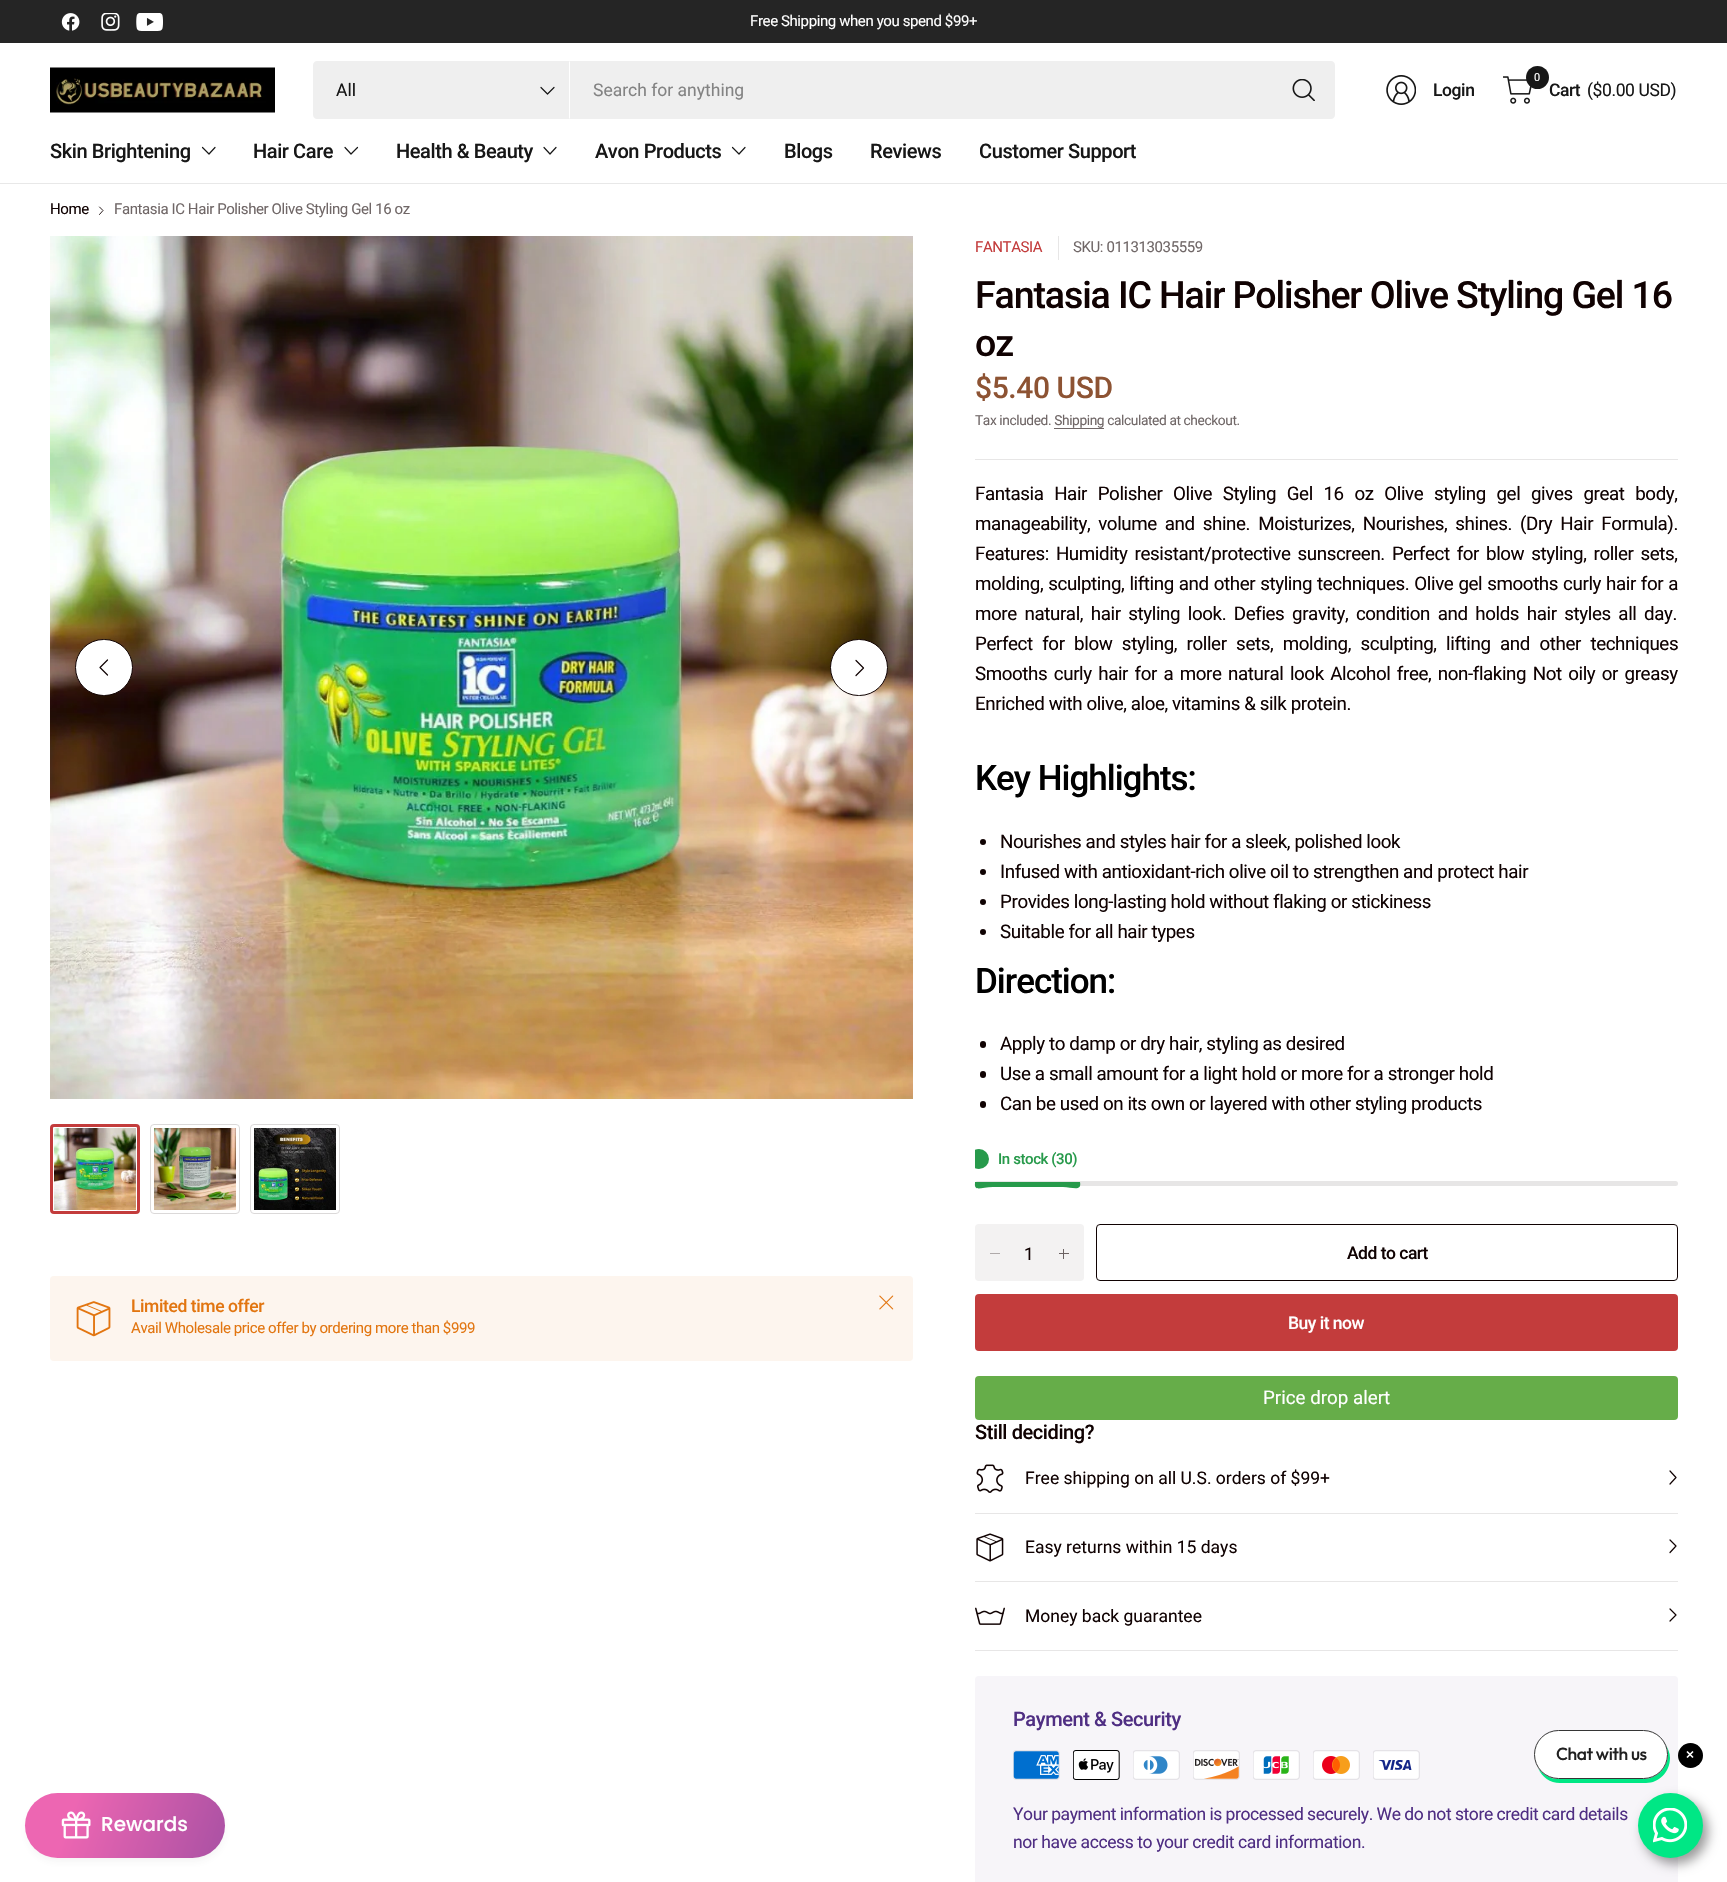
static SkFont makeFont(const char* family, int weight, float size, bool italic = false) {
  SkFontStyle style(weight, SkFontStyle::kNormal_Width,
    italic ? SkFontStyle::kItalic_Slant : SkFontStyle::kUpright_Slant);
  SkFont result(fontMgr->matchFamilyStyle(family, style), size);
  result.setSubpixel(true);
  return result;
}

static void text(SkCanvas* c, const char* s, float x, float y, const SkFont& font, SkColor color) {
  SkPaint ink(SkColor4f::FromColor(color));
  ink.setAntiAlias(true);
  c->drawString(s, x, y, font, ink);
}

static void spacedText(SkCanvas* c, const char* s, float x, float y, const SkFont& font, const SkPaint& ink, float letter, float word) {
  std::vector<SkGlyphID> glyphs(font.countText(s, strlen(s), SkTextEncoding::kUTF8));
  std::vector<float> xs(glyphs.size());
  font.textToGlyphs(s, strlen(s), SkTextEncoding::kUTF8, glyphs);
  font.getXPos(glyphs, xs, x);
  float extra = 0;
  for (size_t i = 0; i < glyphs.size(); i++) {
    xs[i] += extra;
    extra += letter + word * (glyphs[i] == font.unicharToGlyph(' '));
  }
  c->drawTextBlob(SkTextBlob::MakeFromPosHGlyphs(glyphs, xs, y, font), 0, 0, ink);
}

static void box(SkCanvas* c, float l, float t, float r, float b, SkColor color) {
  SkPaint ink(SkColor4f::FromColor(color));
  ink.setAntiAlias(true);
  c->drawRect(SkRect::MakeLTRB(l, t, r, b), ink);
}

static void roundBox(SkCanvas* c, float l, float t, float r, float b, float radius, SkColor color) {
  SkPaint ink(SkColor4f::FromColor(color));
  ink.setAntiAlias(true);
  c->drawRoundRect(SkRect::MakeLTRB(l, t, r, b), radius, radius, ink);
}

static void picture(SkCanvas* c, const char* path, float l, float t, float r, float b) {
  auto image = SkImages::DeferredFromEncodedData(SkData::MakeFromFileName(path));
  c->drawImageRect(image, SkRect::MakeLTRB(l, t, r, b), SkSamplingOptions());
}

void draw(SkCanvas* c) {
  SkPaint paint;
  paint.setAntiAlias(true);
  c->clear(0xffffffff);
  box(c, 0, 0, 1727, 43, 0xff252525);
  picture(c, "img_01.png", 61, 13, 80, 31);
  picture(c, "img_02.png", 101, 13, 120, 31);
  picture(c, "img_03.png", 136, 13, 163, 31);
  SkFont face1 = makeFont("Roboto", 400, 15);
  paint.setColor(0xffffffff);
  spacedText(c, "Free Shipping when you spend $99+", 750, 26, face1, paint, -0.4f, 0);
  picture(c, "img_04.png", 50, 67, 275, 113);
  paint.setColor(0xffefefef);
  c->drawPath(SkPathBuilder().moveTo(317, 61).lineTo(570, 61).lineTo(570, 119).lineTo(317, 119).cubicTo(315, 119, 313, 117, 313, 115).lineTo(313, 65).cubicTo(313, 63, 315, 61, 317, 61).close().detach(), paint);
  paint.setColor(0xffffffff);
  c->drawPath(SkPathBuilder().moveTo(570, 61).lineTo(569, 62).lineTo(569, 118).lineTo(570, 119).close().detach(), paint);
  SkFont face2 = makeFont("Roboto", 400, 17.5f);
  text(c, "All", 336, 96, face2, 0xff171717);
  paint.setStyle(SkPaint::kStroke_Style);
  paint.setStrokeWidth(1.2f);
  paint.setStrokeCap(SkPaint::kRound_Cap);
  paint.setStrokeJoin(SkPaint::kRound_Join);
  paint.setColor(0xff171717);
  c->drawPath(SkPathBuilder().moveTo(554, 87.5f).lineTo(547.5f, 94).lineTo(541, 87.5f).detach(), paint);
  paint.setStyle(SkPaint::kFill_Style);
  paint.setColor(0xffefefef);
  c->drawPath(SkPathBuilder().moveTo(570, 61).lineTo(1331, 61).cubicTo(1333, 61, 1335, 63, 1335, 65).lineTo(1335, 115).cubicTo(1335, 117, 1333, 119, 1331, 119).lineTo(570, 119).close().detach(), paint);
  text(c, "Search for anything", 593, 96, face2, 0xff838383);
  picture(c, "img_05.png", 1292, 79, 1315, 101);
  picture(c, "img_06.png", 1386, 75, 1416, 105);
  SkFont face3 = makeFont("Roboto", 500, 17.5f);
  paint.setColor(0xff171717);
  spacedText(c, "Login", 1433, 96, face3, paint, -0.4f, 0);
  picture(c, "img_07.png", 1503, 76, 1532, 104);
  c->drawCircle(1537.5f, 77.5f, 11.5f, paint);
  SkFont face4 = makeFont("Roboto", 400, 11);
  paint.setColor(0xffffffff);
  spacedText(c, "0", 1534, 81, face4, paint, -0.4f, 0);
  paint.setColor(0xff171717);
  spacedText(c, "Cart", 1549, 96, face3, paint, -0.4f, 0);
  spacedText(c, "($0.00 USD)", 1587, 96, face2, paint, -0.4f, 0);
  SkFont face5 = makeFont("Roboto", 500, 20);
  spacedText(c, "Skin Brightening", 50, 158, face5, paint, -0.4f, 0);
  paint.setStyle(SkPaint::kStroke_Style);
  c->drawPath(SkPathBuilder().moveTo(215, 147.5f).lineTo(209, 154).lineTo(202.5f, 147.5f).detach(), paint);
  paint.setStyle(SkPaint::kFill_Style);
  spacedText(c, "Hair Care", 253, 158, face5, paint, -0.4f, 0);
  paint.setStyle(SkPaint::kStroke_Style);
  c->drawPath(SkPathBuilder().moveTo(357.5f, 147.5f).lineTo(351, 154).lineTo(345, 147.5f).detach(), paint);
  paint.setStyle(SkPaint::kFill_Style);
  spacedText(c, "Health & Beauty", 396, 158, face5, paint, -0.4f, 0);
  paint.setStyle(SkPaint::kStroke_Style);
  c->drawPath(SkPathBuilder().moveTo(556, 147.5f).lineTo(550, 154).lineTo(544, 147.5f).detach(), paint);
  paint.setStyle(SkPaint::kFill_Style);
  spacedText(c, "Avon Products", 595, 158, face5, paint, -0.4f, 0);
  paint.setStyle(SkPaint::kStroke_Style);
  c->drawPath(SkPathBuilder().moveTo(745, 147.5f).lineTo(739, 154).lineTo(732.5f, 147.5f).detach(), paint);
  paint.setStyle(SkPaint::kFill_Style);
  spacedText(c, "Blogs", 784, 158, face5, paint, -0.4f, 0);
  spacedText(c, "Reviews", 870, 158, face5, paint, -0.4f, 0);
  spacedText(c, "Customer Support", 979, 158, face5, paint, -0.4f, 0);
  box(c, 0, 183, 1727, 184, 0xffe8e8e8);
  paint.setColor(0xff100202);
  spacedText(c, "Home", 50, 214, face1, paint, -0.4f, 0);
  paint.setStyle(SkPaint::kStroke_Style);
  paint.setStrokeWidth(0.9f);
  c->drawPath(SkPathBuilder().moveTo(99.5f, 207).lineTo(103, 210.5f).lineTo(99.5f, 214.5f).detach(), paint);
  paint.setStyle(SkPaint::kFill_Style);
  paint.setColor(0xff706767);
  spacedText(c, "Fantasia IC Hair Polisher Olive Styling Gel 16 oz", 114, 214, face1, paint, -0.4f, 0);
  picture(c, "img_08.png", 50, 236, 913, 1099);
  paint.setColor(0xffffffff);
  c->drawRoundRect(SkRect::MakeLTRB(75.5f, 639.5f, 132.5f, 695.5f), 28, 28, paint);
  paint.setStyle(SkPaint::kStroke_Style);
  paint.setStrokeWidth(1);
  paint.setStrokeCap(SkPaint::kButt_Cap);
  paint.setStrokeJoin(SkPaint::kMiter_Join);
  paint.setColor(0xff100202);
  c->drawRoundRect(SkRect::MakeLTRB(75.5f, 639.5f, 132.5f, 695.5f), 28, 28, paint);
  paint.setStrokeWidth(1.2f);
  paint.setStrokeCap(SkPaint::kRound_Cap);
  paint.setStrokeJoin(SkPaint::kRound_Join);
  c->drawPath(SkPathBuilder().moveTo(107.5f, 675).lineTo(100, 667.5f).lineTo(107.5f, 660).detach(), paint);
  paint.setStyle(SkPaint::kFill_Style);
  paint.setColor(0xffffffff);
  c->drawRoundRect(SkRect::MakeLTRB(830.5f, 639.5f, 887.5f, 695.5f), 28, 28, paint);
  paint.setStyle(SkPaint::kStroke_Style);
  paint.setStrokeWidth(1);
  paint.setStrokeCap(SkPaint::kButt_Cap);
  paint.setStrokeJoin(SkPaint::kMiter_Join);
  paint.setColor(0xff100202);
  c->drawRoundRect(SkRect::MakeLTRB(830.5f, 639.5f, 887.5f, 695.5f), 28, 28, paint);
  paint.setStrokeWidth(1.2f);
  paint.setStrokeCap(SkPaint::kRound_Cap);
  paint.setStrokeJoin(SkPaint::kRound_Join);
  c->drawPath(SkPathBuilder().moveTo(856, 675.5f).lineTo(863.5f, 668).lineTo(856, 660.5f).detach(), paint);
  picture(c, "img_09.png", 54, 1128, 136, 1210);
  paint.setStrokeWidth(3);
  paint.setStrokeCap(SkPaint::kButt_Cap);
  paint.setStrokeJoin(SkPaint::kMiter_Join);
  paint.setColor(0xffc33c3c);
  c->drawRoundRect(SkRect::MakeLTRB(51.5f, 1125.5f, 138.5f, 1212.5f), 2.5f, 2.5f, paint);
  picture(c, "img_10.png", 154, 1128, 236, 1210);
  paint.setStrokeWidth(1);
  paint.setColor(0xffdbd9d9);
  c->drawRoundRect(SkRect::MakeLTRB(150.5f, 1124.5f, 239.5f, 1213.5f), 3.5f, 3.5f, paint);
  picture(c, "img_11.png", 254, 1128, 336, 1210);
  c->drawRoundRect(SkRect::MakeLTRB(250.5f, 1124.5f, 339.5f, 1213.5f), 3.5f, 3.5f, paint);
  box(c, 1058, 236, 1059, 260, 0xffe7e6e6);
  paint.setStyle(SkPaint::kFill_Style);
  paint.setColor(0xffc33c3c);
  spacedText(c, "FANTASIA", 975, 252, face1, paint, -0.4f, 0);
  paint.setColor(0xff706767);
  spacedText(c, "SKU: 011313035559", 1073, 252, face1, paint, -0.4f, 0);
  box(c, 975, 459, 1678, 460, 0xffe7e6e6);
  SkFont face6 = makeFont("Roboto", 500, 37.5f);
  paint.setColor(0xff100202);
  spacedText(c, "Fantasia IC Hair Polisher Olive Styling Gel 16", 975, 308, face6, paint, -1.1f, 0);
  spacedText(c, "oz", 975, 356, face6, paint, -1.1f, 0);
  SkFont face7 = makeFont("Roboto", 500, 30);
  paint.setColor(0xff8d5333);
  spacedText(c, "$5.40 USD", 975, 398, face7, paint, -0.4f, 0);
  SkFont face8 = makeFont("Roboto", 400, 13.75f);
  paint.setColor(0xff706767);
  spacedText(c, "Tax included. Shipping calculated at checkout.", 975, 425, face8, paint, -0.4f, 0);
  box(c, 1054, 428, 1104, 429, 0xff706767);
  SkFont face9 = makeFont("Roboto", 400, 18.75f);
  paint.setColor(0xff100202);
  spacedText(c, "Fantasia Hair Polisher Olive Styling Gel 16 oz Olive styling gel gives great body,", 975, 500, face9, paint, -0.4f, 6.4f);
  spacedText(c, "manageability, volume and shine. Moisturizes, Nourishes, shines. (Dry Hair Formula).", 975, 530, face9, paint, -0.4f, 3.75f);
  spacedText(c, "Features: Humidity resistant/protective sunscreen. Perfect for blow styling, roller sets,", 975, 560, face9, paint, -0.4f, 2.75f);
  spacedText(c, "molding, sculpting, lifting and other styling techniques. Olive gel smooths curly hair for a", 975, 590, face9, paint, -0.4f, 0.75f);
  spacedText(c, "more natural, hair styling look. Defies gravity, condition and holds hair styles all day.", 975, 620, face9, paint, -0.4f, 3.4f);
  spacedText(c, "Perfect for blow styling, roller sets, molding, sculpting, lifting and other techniques", 975, 650, face9, paint, -0.4f, 5.25f);
  spacedText(c, "Smooths curly hair for a more natural look Alcohol free, non-flaking Not oily or greasy", 975, 680, face9, paint, -0.4f, 2.25f);
  spacedText(c, "Enriched with olive, aloe, vitamins & silk protein.", 975, 710, face9, paint, -0.4f, 0);
  SkFont face10 = makeFont("Roboto", 500, 35);
  paint.setColor(0xff000000);
  spacedText(c, "Key Highlights:", 975, 790, face10, paint, -1, 0);
  paint.setColor(0xff100202);
  c->drawCircle(983, 842, 3, paint);
  spacedText(c, "Nourishes and styles hair for a sleek, polished look", 1000, 848, face9, paint, -0.4f, 0);
  c->drawCircle(983, 872, 3, paint);
  spacedText(c, "Infused with antioxidant-rich olive oil to strengthen and protect hair", 1000, 878, face9, paint, -0.4f, 0);
  c->drawCircle(983, 902, 3, paint);
  spacedText(c, "Provides long-lasting hold without flaking or stickiness", 1000, 908, face9, paint, -0.4f, 0);
  c->drawCircle(983, 932, 3, paint);
  spacedText(c, "Suitable for all hair types", 1000, 938, face9, paint, -0.4f, 0);
  paint.setColor(0xff000000);
  spacedText(c, "Direction:", 975, 993, face10, paint, -1, 0);
  roundBox(c, 980, 1041, 986, 1048, 3, 0xff100202);
  paint.setColor(0xff100202);
  spacedText(c, "Apply to damp or dry hair, styling as desired", 1000, 1050, face9, paint, -0.4f, 0);
  roundBox(c, 980, 1071, 986, 1078, 3, 0xff100202);
  spacedText(c, "Use a small amount for a light hold or more for a stronger hold", 1000, 1080, face9, paint, -0.4f, 0);
  roundBox(c, 980, 1101, 986, 1108, 3, 0xff100202);
  spacedText(c, "Can be used on its own or layered with other styling products", 1000, 1110, face9, paint, -0.4f, 0);
  c->save();
  c->clipRect(SkRect::MakeLTRB(975, 236, 1678, 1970));
  paint.setColor(0xff279a4b);
  c->drawCircle(979, 1159, 10, paint);
  c->restore();
  SkFont face11 = makeFont("Roboto", 500, 15);
  spacedText(c, "In stock (30)", 998, 1164, face11, paint, -0.4f, 0);
  roundBox(c, 975, 1181, 1678, 1186, 2.5f, 0xffe7e6e6);
  c->drawPath(SkPathBuilder().moveTo(975, 1182).lineTo(1080, 1182).cubicTo(1082, 1192, 1072, 1187, 1063, 1187).lineTo(993, 1187).cubicTo(981, 1187, 974, 1192, 975, 1183).close().detach(), paint);
  roundBox(c, 975, 1224, 1084, 1281, 4, 0xfff3f2f2);
  box(c, 990, 1253, 1000, 1254, 0xffafaaaa);
  text(c, "1", 1024, 1260, face2, 0xff100202);
  box(c, 1063, 1249, 1064, 1259, 0xff6b6262);
  box(c, 1059, 1253, 1069, 1254, 0xff6b6262);
  paint.setStyle(SkPaint::kStroke_Style);
  paint.setColor(0xff100202);
  c->drawRoundRect(SkRect::MakeLTRB(1096.5f, 1224.5f, 1677.5f, 1280.5f), 3.5f, 3.5f, paint);
  paint.setStyle(SkPaint::kFill_Style);
  spacedText(c, "Add to cart", 1347, 1259, face3, paint, -0.5f, 0);
  roundBox(c, 975, 1294, 1678, 1351, 4, 0xffc33c3c);
  paint.setColor(0xffffffff);
  spacedText(c, "Buy it now", 1288, 1329, face3, paint, -0.5f, 0);
  roundBox(c, 975, 1376, 1678, 1420, 4, 0xff66ad49);
  text(c, "Price drop alert", 1263, 1404, face9, 0xffffffff);
  paint.setColor(0xff100202);
  spacedText(c, "Still deciding?", 975, 1439, face5, paint, -0.4f, 0);
  picture(c, "img_12.png", 976, 1464, 1004, 1493);
  text(c, "Free shipping on all U.S. orders of $99+", 1025, 1484, face2, 0xff100202);
  paint.setStyle(SkPaint::kStroke_Style);
  paint.setStrokeWidth(1.2f);
  paint.setStrokeCap(SkPaint::kRound_Cap);
  paint.setStrokeJoin(SkPaint::kRound_Join);
  c->drawPath(SkPathBuilder().moveTo(1670, 1471).lineTo(1676, 1477.5f).lineTo(1670, 1484).detach(), paint);
  box(c, 975, 1513, 1678, 1514, 0xffe7e6e6);
  picture(c, "img_13.png", 976, 1533, 1004, 1562);
  text(c, "Easy returns within 15 days", 1025, 1553, face2, 0xff100202);
  c->drawPath(SkPathBuilder().moveTo(1670, 1540).lineTo(1676, 1546).lineTo(1670, 1552.5f).detach(), paint);
  box(c, 975, 1581, 1678, 1582, 0xffe7e6e6);
  box(c, 975, 1650, 1678, 1651, 0xffe7e6e6);
  picture(c, "img_14.png", 975, 1607, 1005, 1625);
  text(c, "Money back guarantee", 1025, 1622, face2, 0xff100202);
  c->drawPath(SkPathBuilder().moveTo(1670, 1609).lineTo(1676, 1615).lineTo(1670, 1621).detach(), paint);
  roundBox(c, 975, 1676, 1678, 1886, 4, 0xfff7f5f9);
  paint.setStyle(SkPaint::kFill_Style);
  paint.setColor(0xff4f2e83);
  spacedText(c, "Payment & Security", 1013, 1726, face5, paint, -0.4f, 0);
  picture(c, "img_15.png", 1013, 1750, 1060, 1780);
  picture(c, "img_16.png", 1073, 1750, 1120, 1780);
  picture(c, "img_17.png", 1133, 1750, 1180, 1780);
  picture(c, "img_18.png", 1193, 1750, 1240, 1780);
  picture(c, "img_19.png", 1253, 1750, 1300, 1780);
  picture(c, "img_20.png", 1313, 1750, 1360, 1780);
  picture(c, "img_21.png", 1373, 1750, 1420, 1780);
  spacedText(c, "Your payment information is processed securely. We do not store credit card details", 1013, 1820, face2, paint, -0.4f, -0.25f);
  spacedText(c, "nor have access to your credit card information.", 1013, 1848, face2, paint, -0.4f, 0);
  roundBox(c, 50, 1276, 913, 1361, 4, 0xfffdf5ee);
  picture(c, "img_22.png", 76, 1301, 111, 1337);
  paint.setColor(0xffe27510);
  spacedText(c, "Limited time offer", 131, 1312, face3, paint, -0.4f, 0);
  spacedText(c, "Avail Wholesale price offer by ordering more than $999", 131, 1333, face1, paint, -0.4f, 0);
  picture(c, "img_23.png", 879, 1295, 894, 1310);
  paint.setColor(0x66000000);
  paint.setMaskFilter(SkMaskFilter::MakeBlur(kNormal_SkBlurStyle, 6));
  c->drawRoundRect(SkRect::MakeLTRB(1643, 1799, 1708, 1864), 32.5f, 32.5f, paint);
  paint.setMaskFilter(nullptr);
  paint.setColor(0xff00e785);
  c->drawPath(SkPathBuilder().moveTo(1538, 1768).cubicTo(1542, 1777, 1550, 1783, 1560, 1783).lineTo(1646, 1783).cubicTo(1659, 1783, 1670, 1772, 1670, 1758).cubicTo(1670, 1753, 1668, 1748, 1665, 1744).cubicTo(1667, 1747, 1668, 1751, 1668, 1754).cubicTo(1668, 1768, 1657, 1779, 1643, 1779).lineTo(1558, 1779).cubicTo(1550, 1779, 1542, 1774, 1538, 1768).close().detach(), paint);
  paint.setColor(0xffffffff);
  c->drawRoundRect(SkRect::MakeLTRB(1534.5f, 1730.5f, 1667.5f, 1778.5f), 24, 24, paint);
  paint.setStyle(SkPaint::kStroke_Style);
  paint.setStrokeWidth(1);
  paint.setStrokeCap(SkPaint::kButt_Cap);
  paint.setStrokeJoin(SkPaint::kMiter_Join);
  paint.setColor(0xff363636);
  c->drawRoundRect(SkRect::MakeLTRB(1534.5f, 1730.5f, 1667.5f, 1778.5f), 24, 24, paint);
  SkFont face12 = makeFont("Outfit", 500, 17.5f);
  paint.setStyle(SkPaint::kFill_Style);
  paint.setColor(0xff202020);
  spacedText(c, "Chat with us", 1556, 1760, face12, paint, -0.4f, 0);
  paint.setColor(0xff000000);
  c->drawCircle(1690.5f, 1755.5f, 12.5f, paint);
  paint.setStyle(SkPaint::kStroke_Style);
  paint.setStrokeWidth(1.7f);
  paint.setColor(0xffffffff);
  c->drawPath(SkPathBuilder().moveTo(1687, 1751.5f).lineTo(1693, 1757.5f).moveTo(1687, 1757.5f).lineTo(1693, 1751.5f).detach(), paint);
  paint.setStyle(SkPaint::kFill_Style);
  paint.setColor(0xff00e785);
  c->drawCircle(1670.5f, 1825.5f, 32.5f, paint);
  picture(c, "img_24.png", 1653, 1808, 1687, 1843);
  paint.setColor(0x14444444);
  paint.setMaskFilter(SkMaskFilter::MakeBlur(kNormal_SkBlurStyle, 5));
  c->drawRoundRect(SkRect::MakeLTRB(28, 1800, 223, 1860), 30, 30, paint);
  paint.setMaskFilter(nullptr);
  {
    const SkColor colors[] = {0xffed66b2, 0xff86469c};
    const float stops[] = {0.17f, 1};
    const SkPoint ends[] = {{26, 1790}, {304, 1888}};
    paint.setShader(SkGradientShader::MakeLinear(ends, colors, stops, 2, SkTileMode::kClamp));
    paint.setAlpha(255);
  }
  c->drawRoundRect(SkRect::MakeLTRB(25, 1793, 225, 1858), 32.5f, 32.5f, paint);
  picture(c, "img_25.png", 61, 1811, 91, 1839);
  SkFont face13 = makeFont("Poppins", 500, 20);
  text(c, "Rewards", 101, 1831, face13, 0xffffffff);
}
